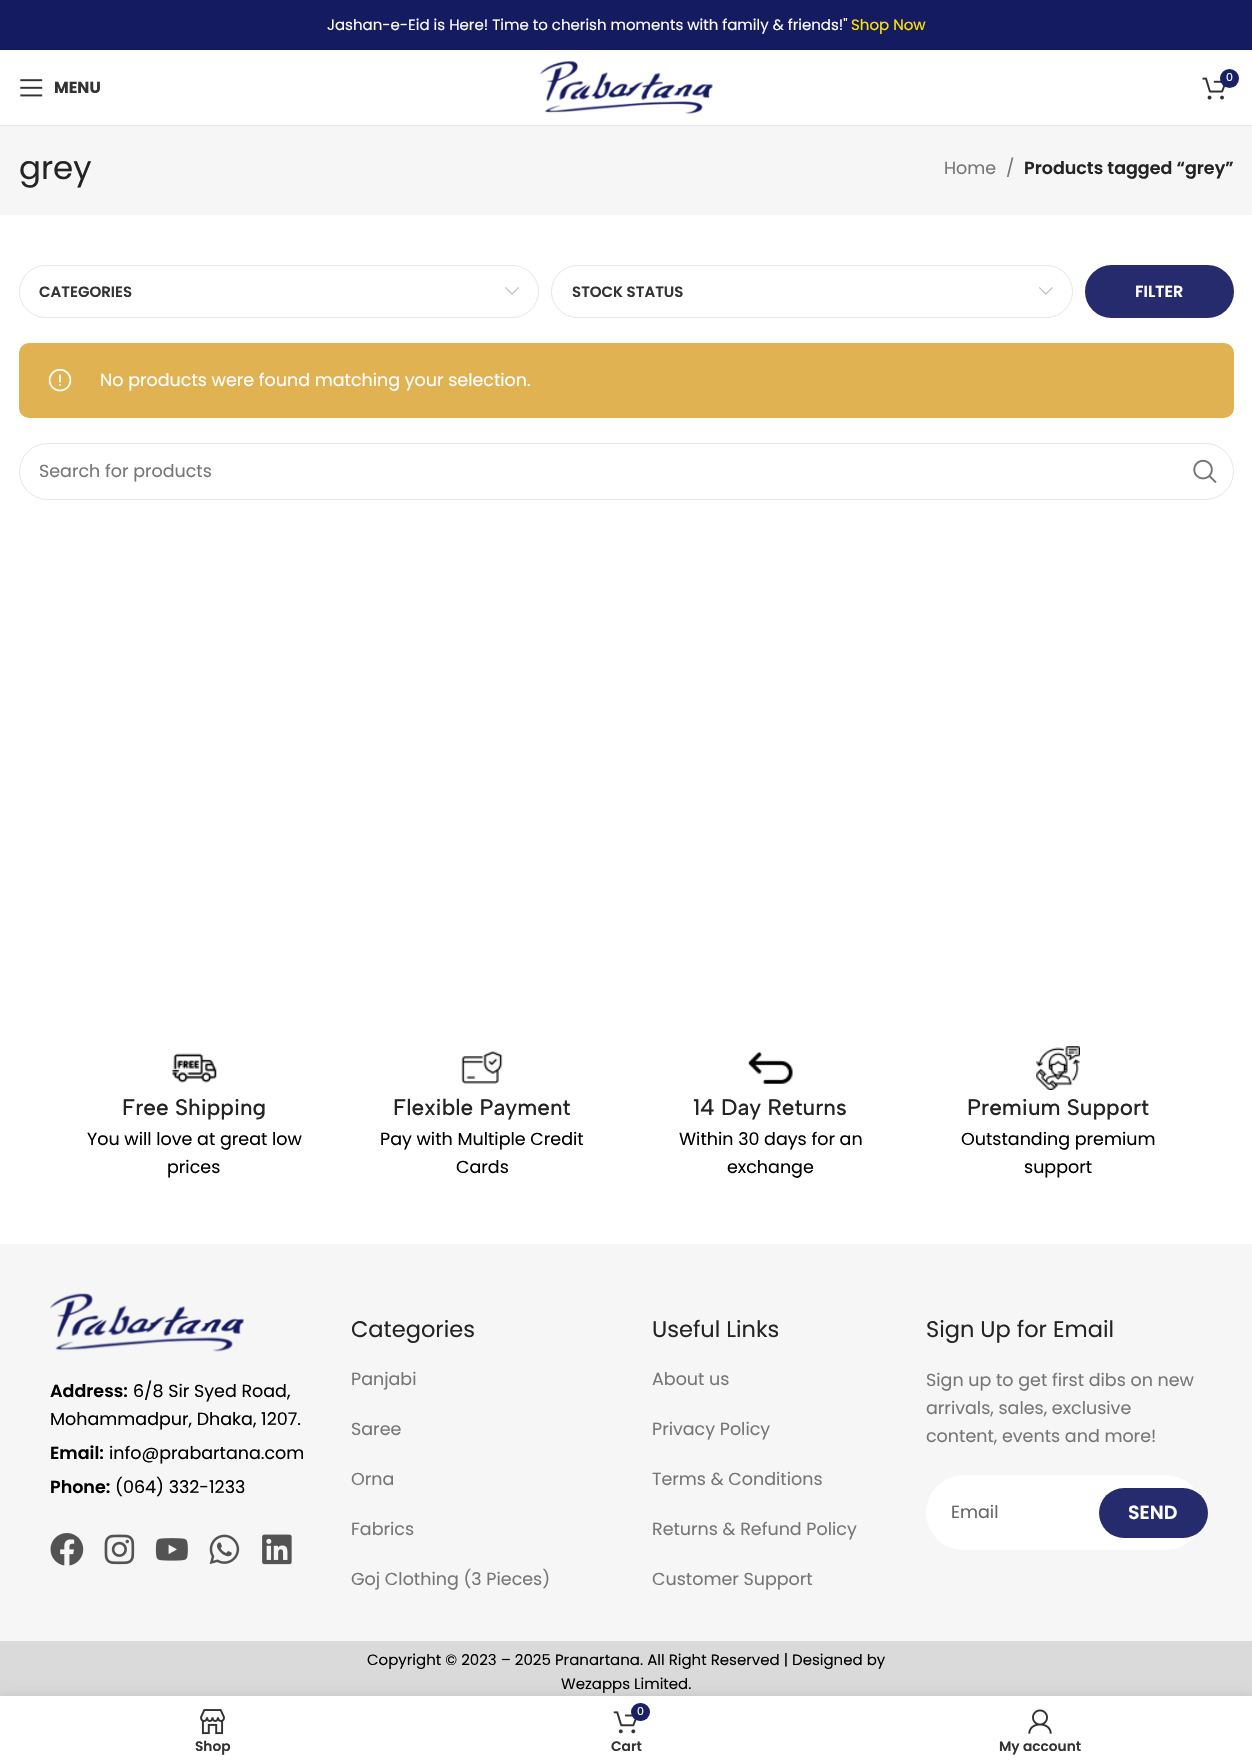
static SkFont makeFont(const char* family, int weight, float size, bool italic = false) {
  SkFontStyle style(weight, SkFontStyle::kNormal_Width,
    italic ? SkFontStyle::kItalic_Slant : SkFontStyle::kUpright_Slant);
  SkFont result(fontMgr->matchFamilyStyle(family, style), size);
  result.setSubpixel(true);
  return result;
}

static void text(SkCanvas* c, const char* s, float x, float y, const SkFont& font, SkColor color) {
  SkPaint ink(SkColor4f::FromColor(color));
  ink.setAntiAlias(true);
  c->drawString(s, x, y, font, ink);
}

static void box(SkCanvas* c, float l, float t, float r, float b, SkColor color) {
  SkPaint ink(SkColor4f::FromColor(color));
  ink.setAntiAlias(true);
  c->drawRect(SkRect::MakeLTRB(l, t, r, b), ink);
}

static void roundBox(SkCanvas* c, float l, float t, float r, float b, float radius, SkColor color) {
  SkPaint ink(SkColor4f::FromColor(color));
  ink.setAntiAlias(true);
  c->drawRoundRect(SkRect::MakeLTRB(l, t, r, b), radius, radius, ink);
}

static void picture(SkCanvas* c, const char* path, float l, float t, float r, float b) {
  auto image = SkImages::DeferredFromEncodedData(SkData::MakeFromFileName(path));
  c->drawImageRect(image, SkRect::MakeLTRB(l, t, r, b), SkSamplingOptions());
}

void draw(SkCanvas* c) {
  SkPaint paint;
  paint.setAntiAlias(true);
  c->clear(0xffffffff);
  box(c, 0, 0, 1252, 50, 0xff141b61);
  SkFont face1 = makeFont("Poppins", 400, 15);
  text(c, "Jashan-e-Eid is Here! Time to cherish moments with family & friends!\"", 327, 30, face1, 0xffffffff);
  text(c, "Shop Now", 851, 30, face1, 0xffffe400);
  box(c, 0, 125, 1252, 126, 0xffe6e6e6);
  picture(c, "img_01.png", 540, 61, 713, 114);
  picture(c, "img_02.png", 1202, 77, 1226, 100);
  paint.setColor(0xff192065);
  c->drawCircle(1229.5f, 78.5f, 9.5f, paint);
  SkFont face2 = makeFont("Poppins", 400, 11);
  text(c, "0", 1226, 81, face2, 0xffffffff);
  picture(c, "img_03.png", 20, 79, 43, 97);
  SkFont face3 = makeFont("Poppins", 700, 16);
  text(c, "MENU", 54, 93, face3, 0xff333333);
  box(c, 0, 126, 1252, 215, 0xfff6f6f6);
  SkFont face4 = makeFont("Poppins", 400, 32.5f);
  text(c, "grey", 19, 179, face4, 0xff242424);
  SkFont face5 = makeFont("Poppins", 400, 17.5f);
  text(c, "Home", 944, 174, face5, 0xff767676);
  text(c, "/", 1006, 174, face5, 0xff767676);
  SkFont face6 = makeFont("Poppins", 600, 17.5f);
  text(c, "Products tagged “grey”", 1024, 174, face6, 0xff242424);
  paint.setStyle(SkPaint::kStroke_Style);
  paint.setStrokeWidth(1);
  paint.setColor(0xffe6e6e6);
  c->drawRoundRect(SkRect::MakeLTRB(19.5f, 265.5f, 538.5f, 317.5f), 26, 26, paint);
  SkFont face7 = makeFont("Poppins", 600, 15);
  text(c, "CATEGORIES", 39, 297, face7, 0xff333333);
  picture(c, "img_04.png", 505, 287, 519, 295);
  c->drawRoundRect(SkRect::MakeLTRB(551.5f, 265.5f, 1072.5f, 317.5f), 26, 26, paint);
  text(c, "STOCK STATUS", 572, 297, face7, 0xff333333);
  picture(c, "img_05.png", 1039, 287, 1053, 295);
  roundBox(c, 1085, 265, 1234, 318, 26.5f, 0xff262b6d);
  SkFont face8 = makeFont("Poppins", 600, 16);
  text(c, "FILTER", 1135, 297, face8, 0xffffffff);
  roundBox(c, 19, 343, 1234, 418, 10, 0xffe0b252);
  picture(c, "img_06.png", 48, 368, 72, 392);
  text(c, "No products were found matching your selection.", 100, 386, face5, 0xffffffff);
  c->drawRoundRect(SkRect::MakeLTRB(19.5f, 443.5f, 1233.5f, 499.5f), 28, 28, paint);
  text(c, "Search for products", 39, 477, face5, 0xff767676);
  picture(c, "img_07.png", 1193, 459, 1217, 484);
  picture(c, "img_08.png", 172, 1053, 217, 1083);
  SkFont face9 = makeFont("Albert Sans", 500, 22.5f);
  text(c, "Free Shipping", 122, 1115, face9, 0xff242424);
  text(c, "You will love at great low", 87, 1145, face5, 0xff000000);
  text(c, "prices", 167, 1173, face5, 0xff000000);
  picture(c, "img_09.png", 461, 1051, 503, 1084);
  text(c, "Flexible Payment", 393, 1115, face9, 0xff242424);
  text(c, "Pay with Multiple Credit", 380, 1145, face5, 0xff000000);
  text(c, "Cards", 456, 1173, face5, 0xff000000);
  picture(c, "img_10.png", 748, 1052, 793, 1084);
  text(c, "14 Day Returns", 693, 1115, face9, 0xff242424);
  text(c, "Within 30 days for an", 679, 1145, face5, 0xff000000);
  text(c, "exchange", 727, 1173, face5, 0xff000000);
  picture(c, "img_11.png", 1036, 1046, 1080, 1090);
  text(c, "Premium Support", 967, 1115, face9, 0xff242424);
  text(c, "Outstanding premium", 961, 1145, face5, 0xff000000);
  text(c, "support", 1024, 1173, face5, 0xff000000);
  box(c, 0, 1244, 1252, 1641, 0xfff6f6f6);
  picture(c, "img_12.png", 50, 1293, 244, 1352);
  text(c, "Address:", 50, 1397, face6, 0xff000000);
  text(c, "6/8 Sir Syed Road,", 133, 1397, face5, 0xff000000);
  text(c, "Mohammadpur, Dhaka, 1207.", 50, 1425, face5, 0xff000000);
  text(c, "Email:", 50, 1459, face6, 0xff000000);
  text(c, "info@prabartana.com", 109, 1459, face5, 0xff000000);
  text(c, "Phone:", 50, 1493, face6, 0xff000000);
  text(c, "(064) 332-1233", 115, 1493, face5, 0xff000000);
  picture(c, "img_13.png", 50, 1533, 84, 1566);
  picture(c, "img_14.png", 104, 1534, 135, 1565);
  picture(c, "img_15.png", 155, 1538, 188, 1561);
  picture(c, "img_16.png", 209, 1534, 240, 1565);
  picture(c, "img_17.png", 262, 1534, 292, 1565);
  SkFont face10 = makeFont("Poppins", 400, 22.5f);
  text(c, "Categories", 351, 1337, face10, 0xff242424);
  text(c, "Panjabi", 351, 1385, face5, 0xff767676);
  text(c, "Saree", 351, 1435, face5, 0xff767676);
  text(c, "Orna", 351, 1485, face5, 0xff767676);
  text(c, "Fabrics", 351, 1535, face5, 0xff767676);
  text(c, "Goj Clothing (3 Pieces)", 351, 1585, face5, 0xff767676);
  text(c, "Useful Links", 652, 1337, face10, 0xff242424);
  text(c, "About us", 652, 1385, face5, 0xff767676);
  text(c, "Privacy Policy", 652, 1435, face5, 0xff767676);
  text(c, "Terms & Conditions", 652, 1485, face5, 0xff767676);
  text(c, "Returns & Refund Policy", 652, 1535, face5, 0xff767676);
  text(c, "Customer Support", 652, 1585, face5, 0xff767676);
  text(c, "Sign Up for Email", 926, 1337, face10, 0xff242424);
  text(c, "Sign up to get first dibs on new", 926, 1386, face5, 0xff767676);
  text(c, "arrivals, sales, exclusive", 926, 1414, face5, 0xff767676);
  text(c, "content, events and more!", 926, 1442, face5, 0xff767676);
  roundBox(c, 926, 1475, 1203, 1550, 37.5f, 0xffffffff);
  text(c, "Email", 951, 1518, face5, 0xff666666);
  roundBox(c, 1099, 1488, 1208, 1538, 25, 0xff262b6d);
  SkFont face11 = makeFont("Poppins", 600, 19);
  text(c, "SEND", 1128, 1519, face11, 0xffffffff);
  box(c, 0, 1641, 1252, 1696, 0xffdadada);
  text(c, "Copyright © 2023 – 2025 Pranartana. All Right Reserved | Designed by", 367, 1665, face1, 0xff000000);
  text(c, "Wezapps Limited.", 561, 1689, face1, 0xff000000);
  paint.setStyle(SkPaint::kFill_Style);
  paint.setColor(0x1f000000);
  paint.setMaskFilter(SkMaskFilter::MakeBlur(kNormal_SkBlurStyle, 5.5f));
  c->drawRect(SkRect::MakeLTRB(0, 1696, 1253, 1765), paint);
  paint.setMaskFilter(nullptr);
  box(c, 0, 1696, 1252, 1764, 0xffffffff);
  picture(c, "img_18.png", 200, 1709, 225, 1735);
  SkFont face12 = makeFont("Poppins", 600, 13.75f);
  text(c, "Shop", 195, 1751, face12, 0xff333333);
  picture(c, "img_19.png", 613, 1711, 637, 1734);
  roundBox(c, 631, 1703, 650, 1721, 9, 0xff192065);
  text(c, "0", 637, 1715, face2, 0xffffffff);
  text(c, "Cart", 611, 1751, face12, 0xff333333);
  picture(c, "img_20.png", 1028, 1709, 1052, 1734);
  text(c, "My account", 999, 1751, face12, 0xff333333);
}
